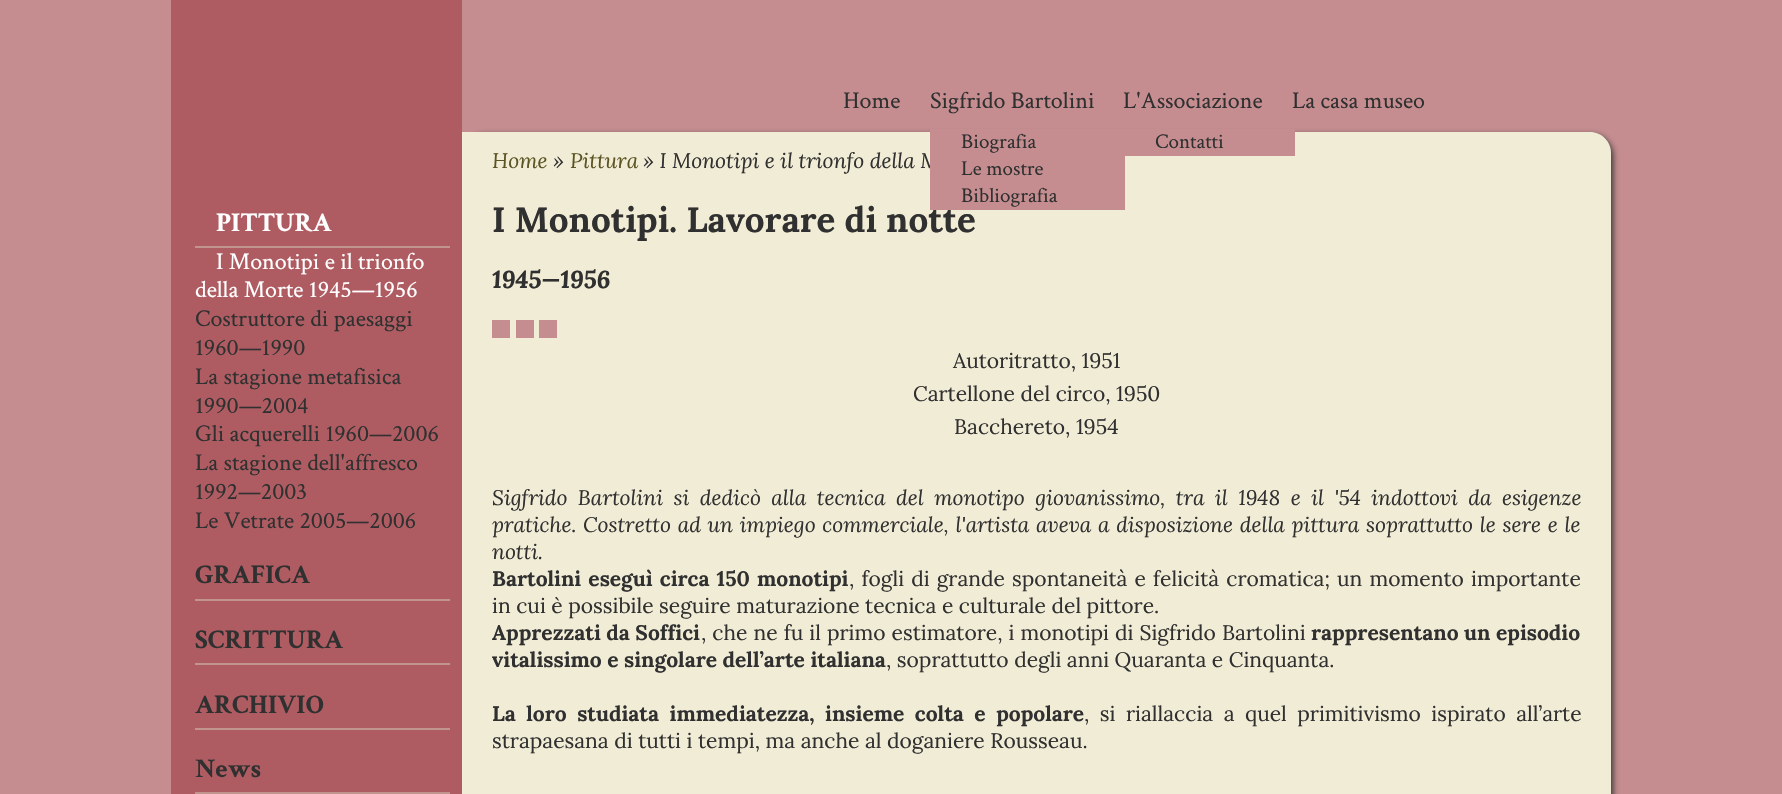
static SkFont makeFont(const char* family, int weight, float size, bool italic = false) {
  SkFontStyle style(weight, SkFontStyle::kNormal_Width,
    italic ? SkFontStyle::kItalic_Slant : SkFontStyle::kUpright_Slant);
  SkFont result(fontMgr->matchFamilyStyle(family, style), size);
  result.setSubpixel(true);
  return result;
}

static void text(SkCanvas* c, const char* s, float x, float y, const SkFont& font, SkColor color) {
  SkPaint ink(SkColor4f::FromColor(color));
  ink.setAntiAlias(true);
  c->drawString(s, x, y, font, ink);
}

static void spacedText(SkCanvas* c, const char* s, float x, float y, const SkFont& font, const SkPaint& ink, float letter, float word) {
  std::vector<SkGlyphID> glyphs(font.countText(s, strlen(s), SkTextEncoding::kUTF8));
  std::vector<float> xs(glyphs.size());
  font.textToGlyphs(s, strlen(s), SkTextEncoding::kUTF8, glyphs);
  font.getXPos(glyphs, xs, x);
  float extra = 0;
  for (size_t i = 0; i < glyphs.size(); i++) {
    xs[i] += extra;
    extra += letter + word * (glyphs[i] == font.unicharToGlyph(' '));
  }
  c->drawTextBlob(SkTextBlob::MakeFromPosHGlyphs(glyphs, xs, y, font), 0, 0, ink);
}

static void box(SkCanvas* c, float l, float t, float r, float b, SkColor color) {
  SkPaint ink(SkColor4f::FromColor(color));
  ink.setAntiAlias(true);
  c->drawRect(SkRect::MakeLTRB(l, t, r, b), ink);
}

void draw(SkCanvas* c) {
  SkPaint paint;
  paint.setAntiAlias(true);
  c->clear(0xffc58d90);
  SkFont face1 = makeFont("Crimson Text", 400, 24);
  text(c, "Home", 843, 108, face1, 0xff303030);
  text(c, "Sigfrido Bartolini", 930, 108, face1, 0xff303030);
  paint.setColor(0xff333333);
  paint.setMaskFilter(SkMaskFilter::MakeBlur(kNormal_SkBlurStyle, 3));
  c->drawRoundRect(SkRect::MakeLTRB(464, 135, 1613, 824), 21, 21, paint);
  paint.setMaskFilter(nullptr);
  paint.setColor(0xfff1ecd5);
  c->drawPath(SkPathBuilder().moveTo(462, 132).lineTo(1590, 132).cubicTo(1601.5f, 132, 1611, 141.5f, 1611, 153).lineTo(1611, 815).lineTo(462, 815).close().detach(), paint);
  SkFont face2 = makeFont("Lora", 400, 21, true);
  text(c, "» I Monotipi e il trionfo della M", 643, 168, face2, 0xff303030);
  box(c, 930, 129, 1295, 156, 0xffc58d90);
  SkFont face3 = makeFont("Crimson Text", 400, 21);
  text(c, "Biografia", 961, 148, face3, 0xff303030);
  SkFont face4 = makeFont("Lora", 700, 35);
  text(c, "I Monotipi. Lavorare di notte", 492, 232, face4, 0xff303030);
  box(c, 930, 156, 1125, 210, 0xffc58d90);
  text(c, "Le mostre", 961, 175, face3, 0xff303030);
  text(c, "Bibliografia", 961, 202, face3, 0xff303030);
  text(c, "L'Associazione", 1123, 108, face1, 0xff303030);
  text(c, "Contatti", 1155, 148, face3, 0xff303030);
  text(c, "La casa museo", 1292, 108, face1, 0xff303030);
  box(c, 171, 0, 462, 794, 0xffae5c62);
  box(c, 195, 246, 450, 248, 0xffc2948e);
  SkFont face5 = makeFont("Crimson Text", 700, 27);
  text(c, "PITTURA", 216, 231, face5, 0xffffffff);
  text(c, "I Monotipi e il trionfo", 216, 269, face1, 0xffffffff);
  text(c, "della Morte 1945—1956", 195, 297, face1, 0xffffffff);
  text(c, "Costruttore di paesaggi", 195, 326, face1, 0xff303030);
  text(c, "1960—1990", 195, 355, face1, 0xff303030);
  text(c, "La stagione metafisica", 195, 384, face1, 0xff303030);
  text(c, "1990—2004", 195, 413, face1, 0xff303030);
  text(c, "Gli acquerelli 1960—2006", 195, 441, face1, 0xff303030);
  text(c, "La stagione dell'affresco", 195, 470, face1, 0xff303030);
  text(c, "1992—2003", 195, 499, face1, 0xff303030);
  text(c, "Le Vetrate 2005—2006", 195, 528, face1, 0xff303030);
  box(c, 195, 599, 450, 601, 0xffc2948e);
  text(c, "GRAFICA", 195, 583, face5, 0xff303030);
  box(c, 195, 663, 450, 665, 0xffc2948e);
  text(c, "SCRITTURA", 195, 648, face5, 0xff303030);
  box(c, 195, 728, 450, 730, 0xffc2948e);
  text(c, "ARCHIVIO", 195, 713, face5, 0xff303030);
  box(c, 195, 792, 450, 794, 0xffc2948e);
  text(c, "News", 195, 777, face5, 0xff303030);
  text(c, "Home", 492, 168, face2, 0xff5c5323);
  text(c, "»", 553, 168, face2, 0xff303030);
  text(c, "Pittura", 570, 168, face2, 0xff5c5323);
  SkFont face6 = makeFont("Lora", 700, 24.5f, true);
  text(c, "1945—1956", 492, 288, face6, 0xff303030);
  box(c, 492, 320, 510, 338, 0xffc58d90);
  box(c, 516, 320, 534, 338, 0xffc58d90);
  box(c, 539, 320, 557, 338, 0xffc58d90);
  SkFont face7 = makeFont("Lora", 400, 21);
  text(c, "Autoritratto, 1951", 953, 368, face7, 0xff303030);
  text(c, "Cartellone del circo, 1950", 913, 401, face7, 0xff303030);
  text(c, "Bacchereto, 1954", 954, 434, face7, 0xff303030);
  paint.setColor(0xff303030);
  spacedText(c, "Sigfrido Bartolini si dedicò alla tecnica del monotipo giovanissimo, tra il 1948 e il '54 indottovi da esigenze", 492, 505, face2, paint, 0, 5);
  spacedText(c, "pratiche. Costretto ad un impiego commerciale, l'artista aveva a disposizione della pittura soprattutto le sere e le", 492, 532, face2, paint, 0, 1.25f);
  text(c, "notti.", 492, 559, face2, 0xff303030);
  SkFont face8 = makeFont("Lora", 700, 21);
  spacedText(c, "Bartolini eseguì circa 150 monotipi", 492, 586, face8, paint, 0, 1.6f);
  spacedText(c, ", fogli di grande spontaneità e felicità cromatica; un momento importante", 849, 586, face7, paint, 0, 1.6f);
  text(c, "in cui è possibile seguire maturazione tecnica e culturale del pittore.", 492, 613, face7, 0xff303030);
  text(c, "Apprezzati da Soffici", 492, 640, face8, 0xff303030);
  spacedText(c, ", che ne fu il primo estimatore, i monotipi di Sigfrido Bartolini", 701, 640, face7, paint, 0, 0.5f);
  text(c, "rappresentano un episodio", 1311, 640, face8, 0xff303030);
  text(c, "vitalissimo e singolare dell’arte italiana", 492, 667, face8, 0xff303030);
  text(c, ", soprattutto degli anni Quaranta e Cinquanta.", 886, 667, face7, 0xff303030);
  spacedText(c, "La loro studiata immediatezza, insieme colta e popolare", 492, 721, face8, paint, 0, 5);
  spacedText(c, ", si riallaccia a quel primitivismo ispirato all’arte", 1084, 721, face7, paint, 0, 5);
  text(c, "strapaesana di tutti i tempi, ma anche al doganiere Rousseau.", 492, 748, face7, 0xff303030);
}
